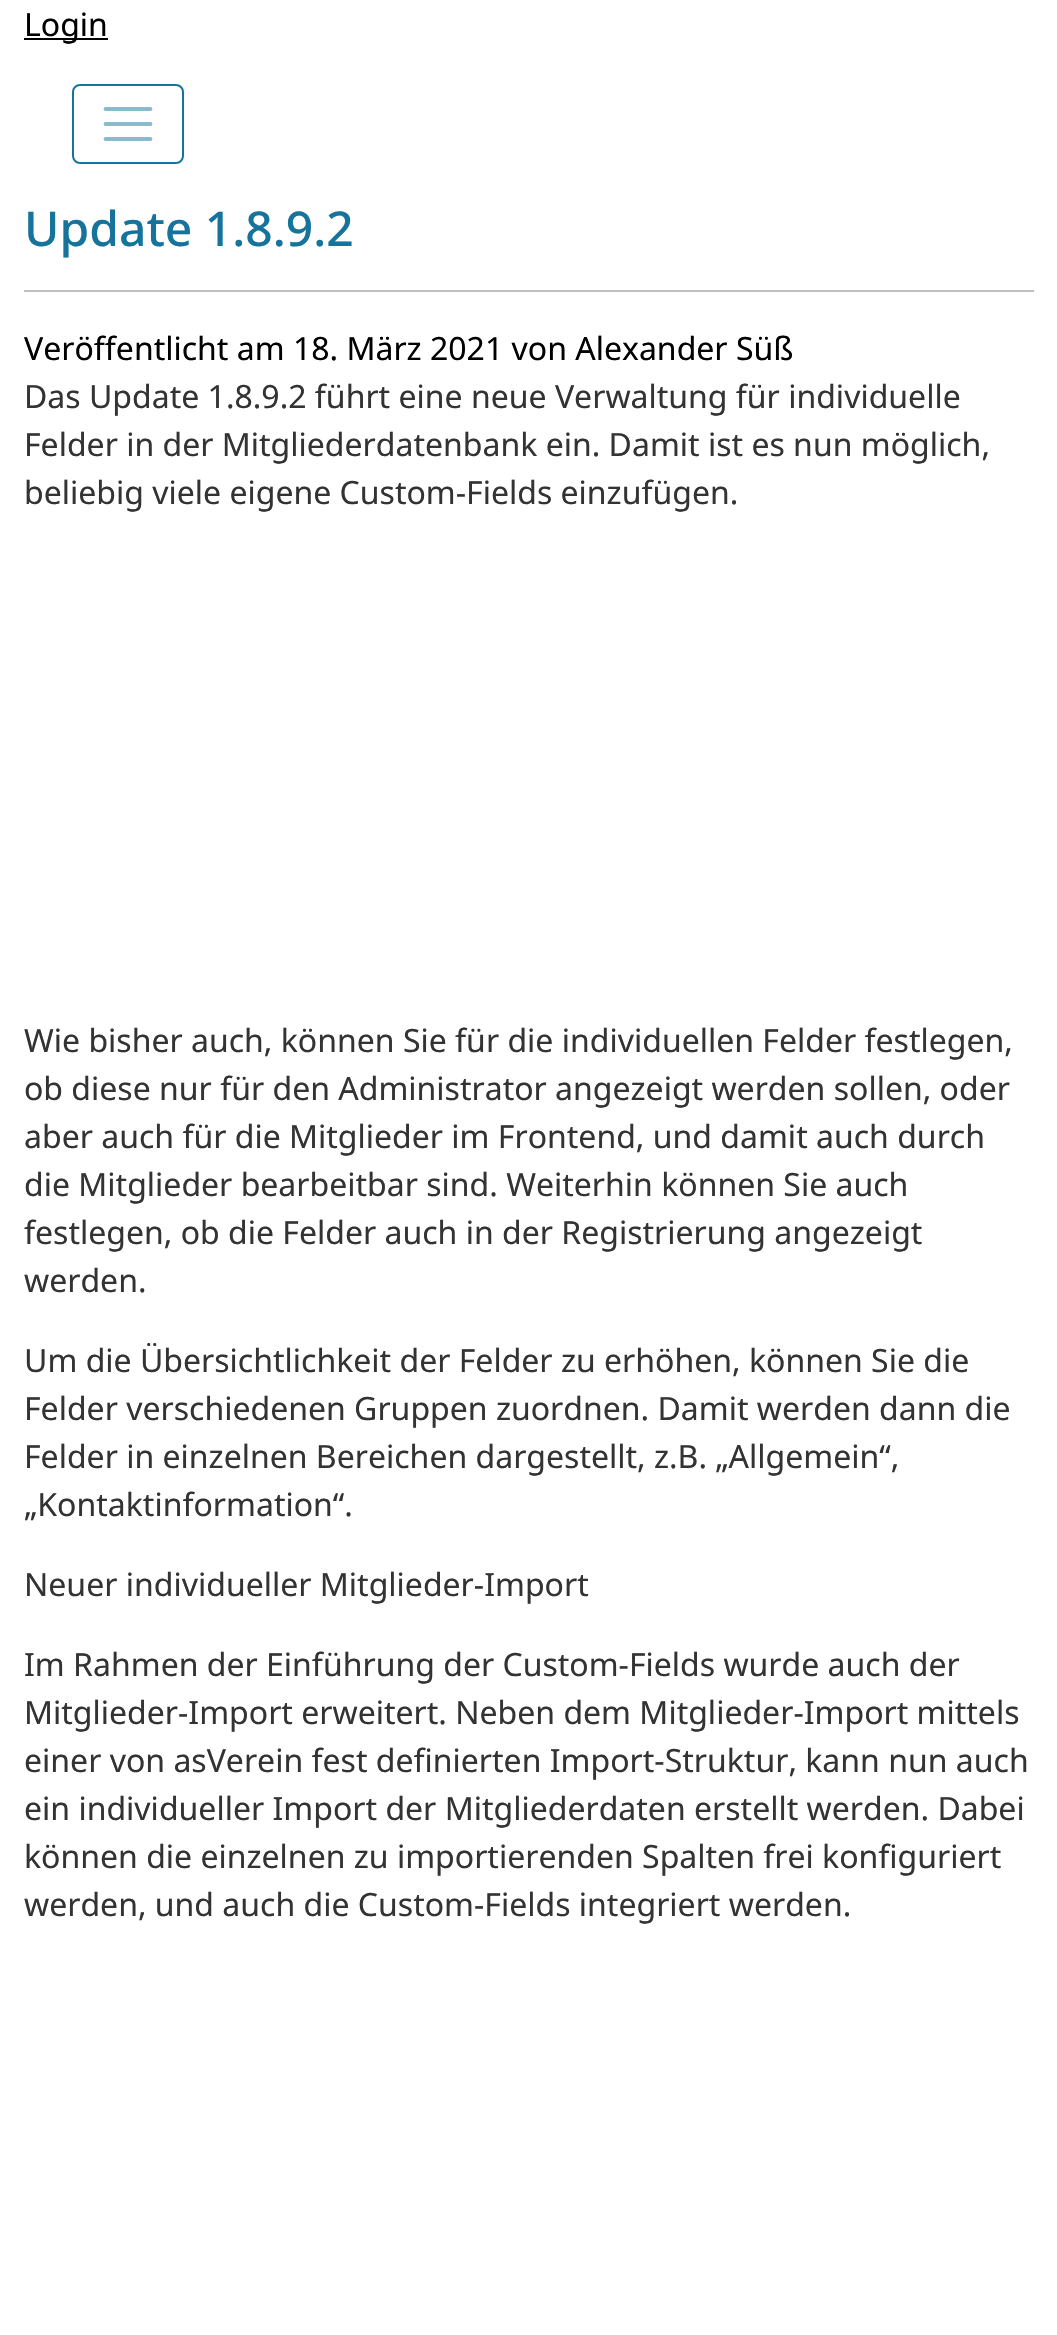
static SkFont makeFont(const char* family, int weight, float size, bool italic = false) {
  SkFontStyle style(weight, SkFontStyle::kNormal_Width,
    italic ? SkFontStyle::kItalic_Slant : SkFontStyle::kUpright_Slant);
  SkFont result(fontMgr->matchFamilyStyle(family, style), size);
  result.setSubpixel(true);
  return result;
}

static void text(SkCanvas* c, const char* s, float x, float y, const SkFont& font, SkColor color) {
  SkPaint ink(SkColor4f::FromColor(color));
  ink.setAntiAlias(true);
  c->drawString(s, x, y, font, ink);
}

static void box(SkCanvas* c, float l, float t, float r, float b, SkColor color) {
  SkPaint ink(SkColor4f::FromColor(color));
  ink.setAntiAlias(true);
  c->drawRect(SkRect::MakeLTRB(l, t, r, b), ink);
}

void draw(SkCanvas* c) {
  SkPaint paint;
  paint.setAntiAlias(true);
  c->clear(0xffffffff);
  box(c, 24, 38, 108, 40, 0xff000000);
  SkFont face1 = makeFont("Noto Sans", 400, 32);
  text(c, "Login", 24, 36, face1, 0xff000000);
  paint.setStyle(SkPaint::kStroke_Style);
  paint.setStrokeWidth(2);
  paint.setColor(0xff16749c);
  c->drawRoundRect(SkRect::MakeLTRB(73, 85, 183, 163), 7, 7, paint);
  paint.setStrokeWidth(3.8f);
  paint.setStrokeCap(SkPaint::kRound_Cap);
  paint.setColor(0xff8bbace);
  c->drawPath(SkPathBuilder().moveTo(105.5f, 109).lineTo(150.5f, 109).moveTo(105.5f, 124).lineTo(150.5f, 124).moveTo(105.5f, 139).lineTo(150.5f, 139).detach(), paint);
  SkFont face2 = makeFont("Noto Sans", 500, 48);
  text(c, "Update 1.8.9.2", 24, 246, face2, 0xff16749c);
  box(c, 24, 290, 1034, 292, 0xffbfbfbf);
  text(c, "Veröffentlicht am 18. März 2021 von Alexander Süß", 24, 360, face1, 0xff000000);
  text(c, "Das Update 1.8.9.2 führt eine neue Verwaltung für individuelle", 24, 408, face1, 0xff333333);
  text(c, "Felder in der Mitgliederdatenbank ein. Damit ist es nun möglich,", 24, 456, face1, 0xff333333);
  text(c, "beliebig viele eigene Custom-Fields einzufügen.", 24, 504, face1, 0xff333333);
  text(c, "Wie bisher auch, können Sie für die individuellen Felder festlegen,", 24, 1052, face1, 0xff333333);
  text(c, "ob diese nur für den Administrator angezeigt werden sollen, oder", 24, 1100, face1, 0xff333333);
  text(c, "aber auch für die Mitglieder im Frontend, und damit auch durch", 24, 1148, face1, 0xff333333);
  text(c, "die Mitglieder bearbeitbar sind. Weiterhin können Sie auch", 24, 1196, face1, 0xff333333);
  text(c, "festlegen, ob die Felder auch in der Registrierung angezeigt", 24, 1244, face1, 0xff333333);
  text(c, "werden.", 24, 1292, face1, 0xff333333);
  text(c, "Um die Übersichtlichkeit der Felder zu erhöhen, können Sie die", 24, 1372, face1, 0xff333333);
  text(c, "Felder verschiedenen Gruppen zuordnen. Damit werden dann die", 24, 1420, face1, 0xff333333);
  text(c, "Felder in einzelnen Bereichen dargestellt, z.B. „Allgemein“,", 24, 1468, face1, 0xff333333);
  text(c, "„Kontaktinformation“.", 24, 1516, face1, 0xff333333);
  text(c, "Neuer individueller Mitglieder-Import", 24, 1596, face1, 0xff333333);
  text(c, "Im Rahmen der Einführung der Custom-Fields wurde auch der", 24, 1676, face1, 0xff333333);
  text(c, "Mitglieder-Import erweitert. Neben dem Mitglieder-Import mittels", 24, 1724, face1, 0xff333333);
  text(c, "einer von asVerein fest definierten Import-Struktur, kann nun auch", 24, 1772, face1, 0xff333333);
  text(c, "ein individueller Import der Mitgliederdaten erstellt werden. Dabei", 24, 1820, face1, 0xff333333);
  text(c, "können die einzelnen zu importierenden Spalten frei konfiguriert", 24, 1868, face1, 0xff333333);
  text(c, "werden, und auch die Custom-Fields integriert werden.", 24, 1916, face1, 0xff333333);
}
